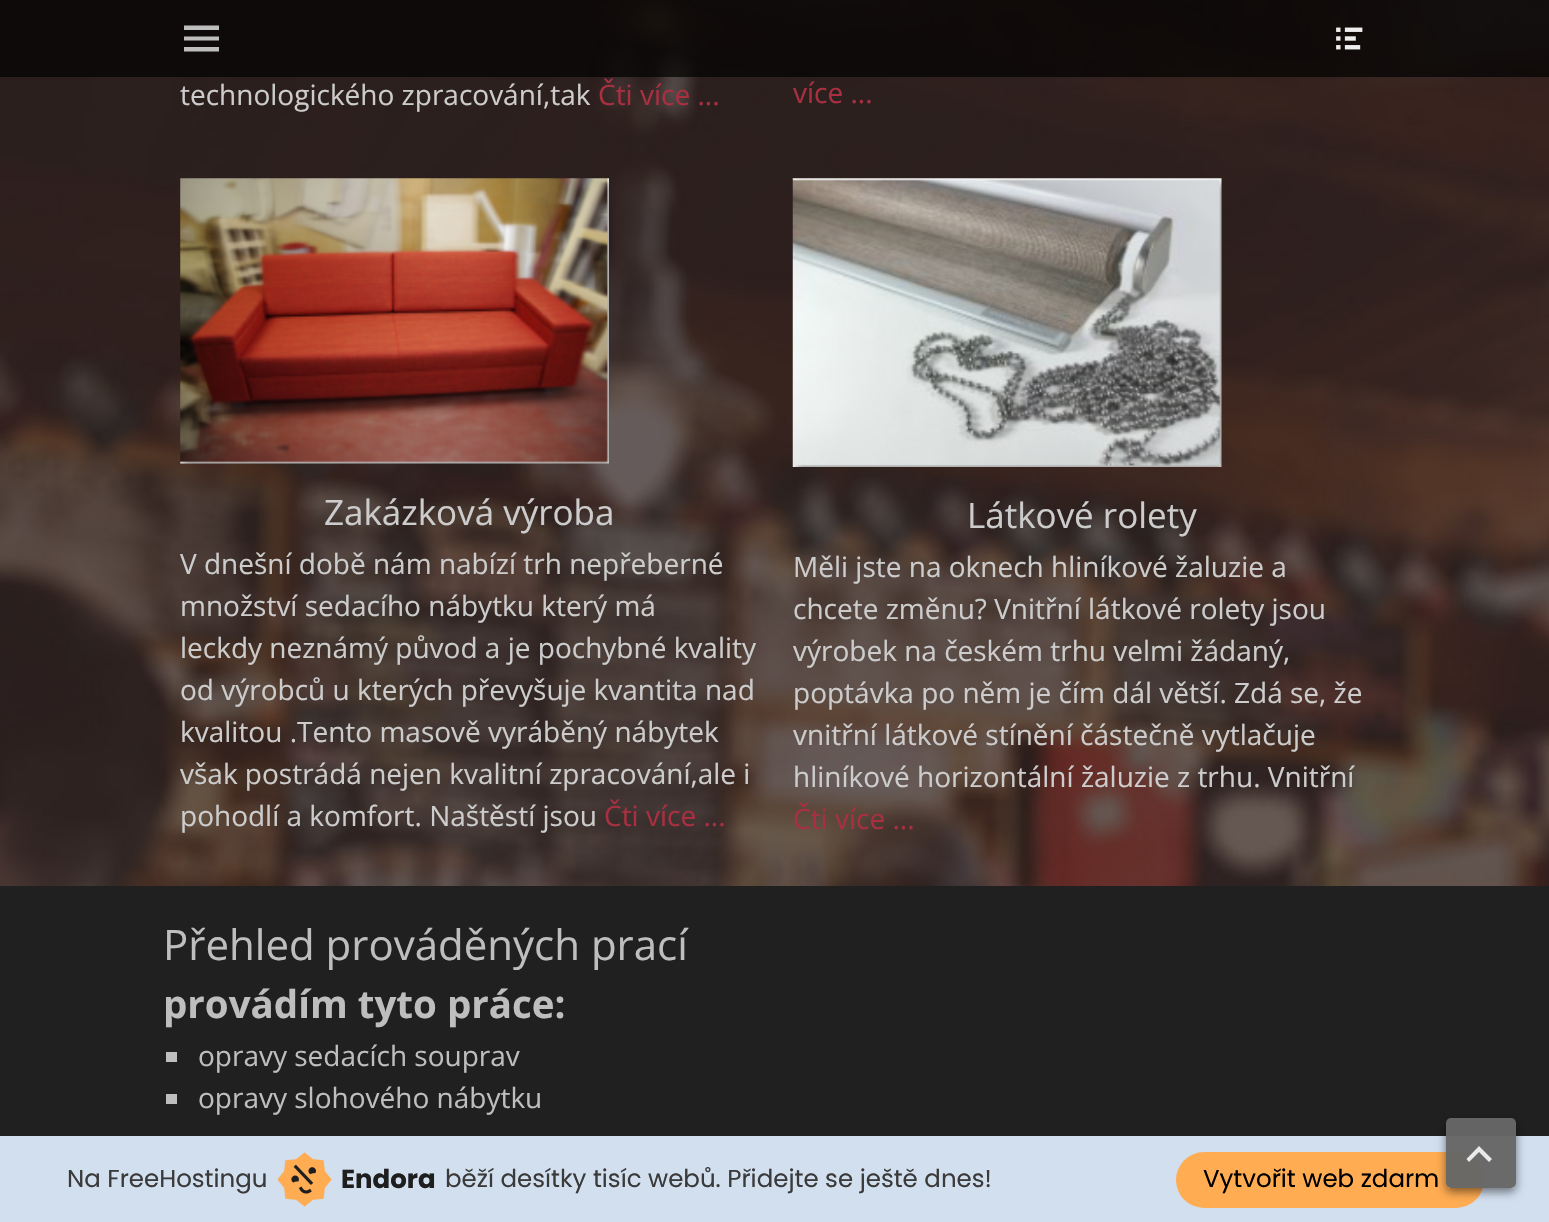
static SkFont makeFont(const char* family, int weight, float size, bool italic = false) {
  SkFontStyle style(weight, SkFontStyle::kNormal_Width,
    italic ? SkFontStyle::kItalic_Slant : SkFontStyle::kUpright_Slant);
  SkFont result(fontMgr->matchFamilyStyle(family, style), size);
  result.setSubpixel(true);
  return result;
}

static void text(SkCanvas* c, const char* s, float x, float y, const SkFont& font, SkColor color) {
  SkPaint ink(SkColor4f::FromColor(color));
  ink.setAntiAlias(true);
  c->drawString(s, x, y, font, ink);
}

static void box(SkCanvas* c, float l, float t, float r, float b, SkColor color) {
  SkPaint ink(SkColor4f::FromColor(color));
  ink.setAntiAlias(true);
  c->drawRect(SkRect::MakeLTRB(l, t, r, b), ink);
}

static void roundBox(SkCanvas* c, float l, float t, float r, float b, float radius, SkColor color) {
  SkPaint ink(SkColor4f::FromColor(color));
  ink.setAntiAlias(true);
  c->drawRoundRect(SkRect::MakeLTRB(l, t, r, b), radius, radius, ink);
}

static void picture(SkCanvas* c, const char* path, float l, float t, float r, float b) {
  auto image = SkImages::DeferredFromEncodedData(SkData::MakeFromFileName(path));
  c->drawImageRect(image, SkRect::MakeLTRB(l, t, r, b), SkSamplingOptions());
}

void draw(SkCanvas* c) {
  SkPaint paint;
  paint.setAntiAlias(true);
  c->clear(0xff202020);
  picture(c, "img_02.png", 0, 0, 1549, 886);
  box(c, 0, 0, 1549, 77, 0xb3000000);
  paint.setColor(0xffbebebe);
  c->drawPath(SkPathBuilder().moveTo(184, 51.5f).lineTo(184, 47).lineTo(219, 47).lineTo(219, 51.5f).close().moveTo(184, 25.5f).lineTo(219, 25.5f).lineTo(219, 30).lineTo(184, 30).close().moveTo(184, 40.5f).lineTo(184, 36.5f).lineTo(219, 36.5f).lineTo(219, 40.5f).close().detach(), paint);
  picture(c, "img_01.png", 1336, 27, 1363, 50);
  SkFont face1 = makeFont("Open Sans", 400, 28);
  text(c, "technologického zpracování,tak", 180, 105, face1, 0xffcccccc);
  text(c, "Čti více ...", 598, 105, face1, 0xffa92f41);
  text(c, "více ...", 793, 103, face1, 0xffa92f41);
  picture(c, "img_03.png", 180, 178, 609, 464);
  SkFont face2 = makeFont("Open Sans", 400, 35);
  text(c, "Zakázková výroba", 324, 525, face2, 0xffcccccc);
  text(c, "V dnešní době nám nabízí trh nepřeberné", 180, 574, face1, 0xffcccccc);
  text(c, "množství sedacího nábytku který má", 180, 616, face1, 0xffcccccc);
  text(c, "leckdy neznámý původ a je pochybné kvality", 180, 658, face1, 0xffcccccc);
  text(c, "od výrobců u kterých převyšuje kvantita nad", 180, 700, face1, 0xffcccccc);
  text(c, "kvalitou .Tento masově vyráběný nábytek", 180, 742, face1, 0xffcccccc);
  text(c, "však postrádá nejen kvalitní zpracování,ale i", 180, 784, face1, 0xffcccccc);
  text(c, "pohodlí a komfort. Naštěstí jsou", 180, 826, face1, 0xffcccccc);
  text(c, "Čti více ...", 604, 826, face1, 0xffa92f41);
  picture(c, "img_04.png", 792, 178, 1222, 467);
  text(c, "Látkové rolety", 967, 528, face2, 0xffcccccc);
  text(c, "Měli jste na oknech hliníkové žaluzie a", 793, 577, face1, 0xffcccccc);
  text(c, "chcete změnu? Vnitřní látkové rolety jsou", 793, 619, face1, 0xffcccccc);
  text(c, "výrobek na českém trhu velmi žádaný,", 793, 661, face1, 0xffcccccc);
  text(c, "poptávka po něm je čím dál větší. Zdá se, že", 793, 703, face1, 0xffcccccc);
  text(c, "vnitřní látkové stínění částečně vytlačuje", 793, 745, face1, 0xffcccccc);
  text(c, "hliníkové horizontální žaluzie z trhu. Vnitřní", 793, 787, face1, 0xffcccccc);
  text(c, "Čti více ...", 793, 829, face1, 0xffa92f41);
  SkFont face3 = makeFont("Open Sans", 400, 42);
  text(c, "Přehled prováděných prací", 163, 960, face3, 0xffbebebe);
  SkFont face4 = makeFont("Open Sans", 700, 38.5f);
  text(c, "provádím tyto práce:", 163, 1018, face4, 0xffbebebe);
  box(c, 166, 1052, 177, 1062, 0xffbebebe);
  text(c, "opravy sedacích souprav", 198, 1066, face1, 0xffbebebe);
  box(c, 166, 1094, 177, 1104, 0xffbebebe);
  text(c, "opravy slohového nábytku", 198, 1108, face1, 0xffbebebe);
  box(c, 0, 1136, 1549, 1222, 0xffd2dfef);
  SkFont face5 = makeFont("Poppins", 400, 24.5f);
  text(c, "Na FreeHostingu", 67, 1187, face5, 0xff3a3a3a);
  picture(c, "img_05.png", 277, 1152, 332, 1207);
  SkFont face6 = makeFont("Poppins", 700, 26);
  text(c, "Endora", 341, 1188, face6, 0xff1e1e1e);
  text(c, "běží desítky tisíc webů. Přidejte se ještě dnes!", 445, 1187, face5, 0xff3a3a3a);
  roundBox(c, 1176, 1152, 1484, 1208, 28, 0xffffac52);
  text(c, "Vytvořit web zdarm", 1203, 1187, face5, 0xff000000);
  c->save();
  c->clipPath(SkPathBuilder(SkPathFillType::kEvenOdd).moveTo(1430, 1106).lineTo(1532, 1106).lineTo(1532, 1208).lineTo(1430, 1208).close().moveTo(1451, 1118).lineTo(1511, 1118).cubicTo(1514, 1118, 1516, 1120, 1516, 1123).lineTo(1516, 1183).cubicTo(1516, 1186, 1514, 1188, 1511, 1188).lineTo(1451, 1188).cubicTo(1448, 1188, 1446, 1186, 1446, 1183).lineTo(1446, 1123).cubicTo(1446, 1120, 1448, 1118, 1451, 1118).close().detach(), true);
  paint.setColor(0x7d000000);
  paint.setMaskFilter(SkMaskFilter::MakeBlur(kNormal_SkBlurStyle, 5));
  c->drawRoundRect(SkRect::MakeLTRB(1446, 1122, 1516, 1192), 5, 5, paint);
  paint.setMaskFilter(nullptr);
  c->restore();
  roundBox(c, 1446, 1118, 1516, 1188, 5, 0xf7666666);
  paint.setColor(0xf7eeeeee);
  c->drawPath(SkPathBuilder().moveTo(1489, 1162).lineTo(1479, 1152).lineTo(1469, 1162).lineTo(1466.5f, 1159).lineTo(1479, 1146).lineTo(1492, 1159).close().detach(), paint);
}
